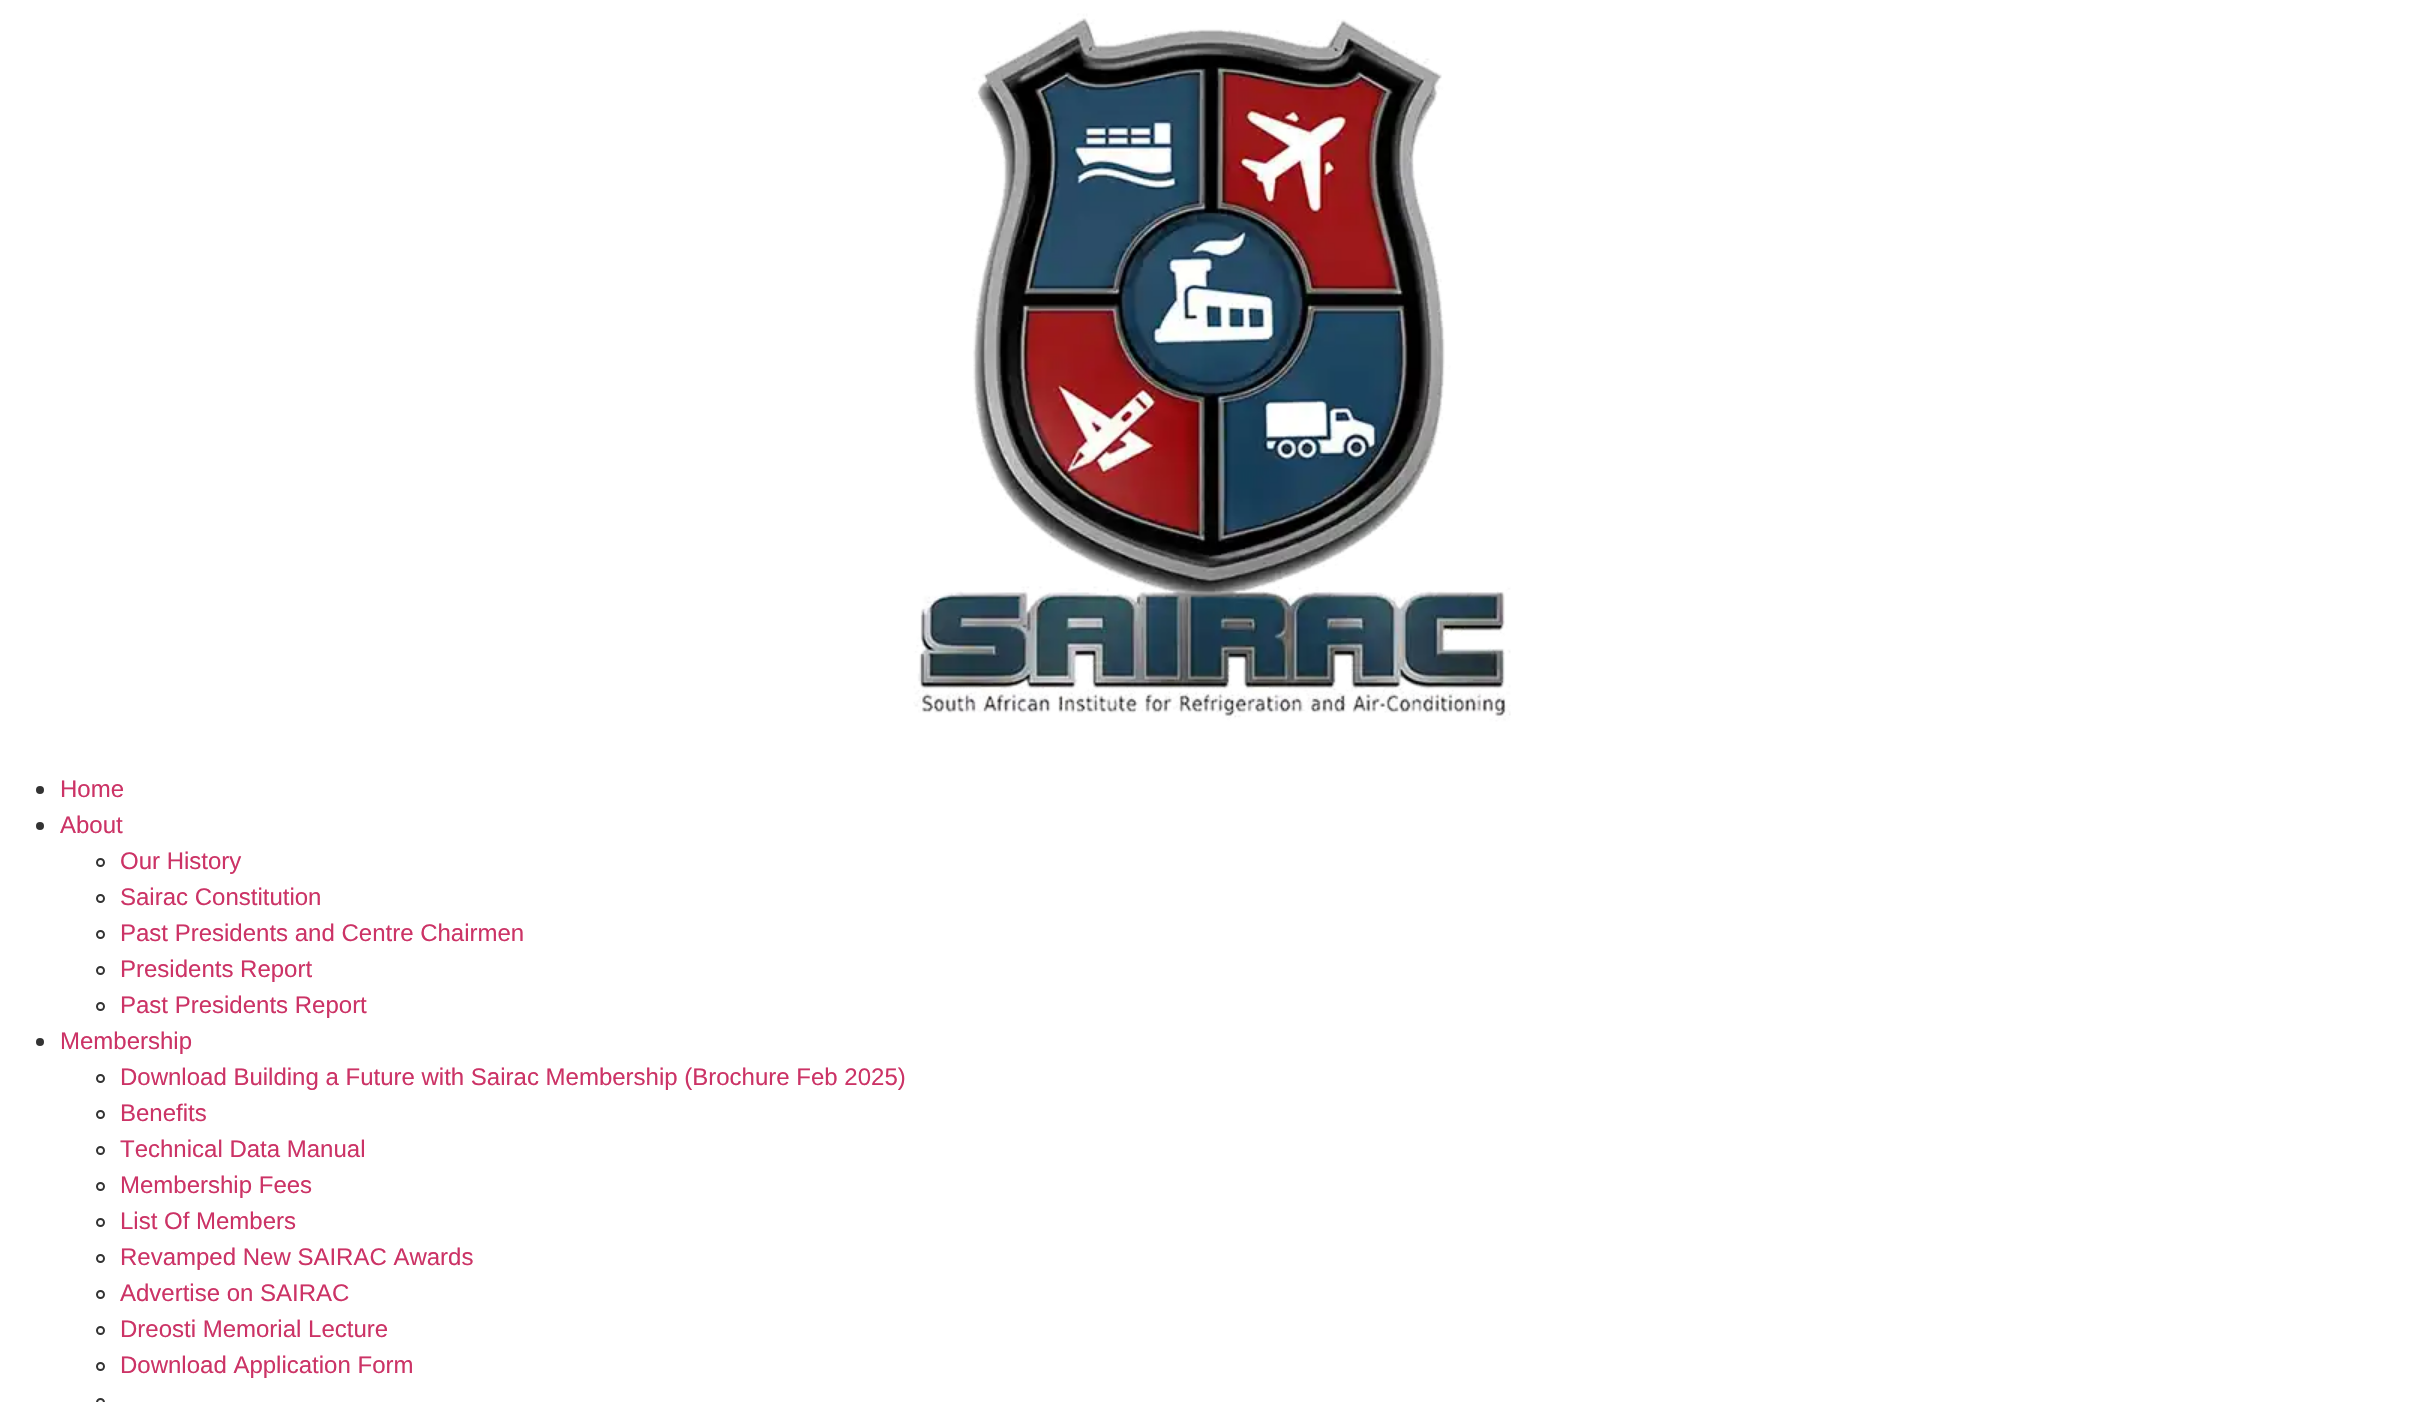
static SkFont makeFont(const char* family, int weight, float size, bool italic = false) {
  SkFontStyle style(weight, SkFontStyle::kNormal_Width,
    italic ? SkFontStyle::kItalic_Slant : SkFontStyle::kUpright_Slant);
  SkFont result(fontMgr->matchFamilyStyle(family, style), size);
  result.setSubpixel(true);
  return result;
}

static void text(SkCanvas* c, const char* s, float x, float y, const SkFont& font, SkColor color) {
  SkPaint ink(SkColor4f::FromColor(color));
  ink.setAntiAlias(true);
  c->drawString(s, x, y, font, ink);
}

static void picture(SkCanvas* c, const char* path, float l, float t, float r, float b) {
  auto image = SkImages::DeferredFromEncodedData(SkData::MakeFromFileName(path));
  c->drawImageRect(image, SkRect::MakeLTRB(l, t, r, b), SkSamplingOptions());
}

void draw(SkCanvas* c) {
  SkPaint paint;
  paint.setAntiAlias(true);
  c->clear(0xffffffff);
  picture(c, "img_01.png", 913, 13, 1511, 722);
  paint.setColor(0xff333333);
  c->drawCircle(40, 790, 4, paint);
  SkFont face1 = makeFont("Liberation Sans", 400, 24);
  text(c, "Home", 60, 797, face1, 0xffcc3366);
  c->drawCircle(40, 826, 4, paint);
  text(c, "About", 60, 833, face1, 0xffcc3366);
  paint.setStyle(SkPaint::kStroke_Style);
  paint.setStrokeWidth(2);
  c->drawCircle(100.5f, 862.5f, 3.5f, paint);
  text(c, "Our History", 120, 869, face1, 0xffcc3366);
  c->drawCircle(100.5f, 898.5f, 3.5f, paint);
  text(c, "Sairac Constitution", 120, 905, face1, 0xffcc3366);
  c->drawCircle(100.5f, 934.5f, 3.5f, paint);
  text(c, "Past Presidents and Centre Chairmen", 120, 941, face1, 0xffcc3366);
  c->drawCircle(100.5f, 970.5f, 3.5f, paint);
  text(c, "Presidents Report", 120, 977, face1, 0xffcc3366);
  c->drawCircle(100.5f, 1006.5f, 3.5f, paint);
  text(c, "Past Presidents Report", 120, 1013, face1, 0xffcc3366);
  paint.setStyle(SkPaint::kFill_Style);
  c->drawCircle(40, 1042, 4, paint);
  text(c, "Membership", 60, 1049, face1, 0xffcc3366);
  paint.setStyle(SkPaint::kStroke_Style);
  c->drawCircle(100.5f, 1078.5f, 3.5f, paint);
  text(c, "Download Building a Future with Sairac Membership (Brochure Feb 2025)", 120, 1085, face1, 0xffcc3366);
  c->drawCircle(100.5f, 1114.5f, 3.5f, paint);
  text(c, "Benefits", 120, 1121, face1, 0xffcc3366);
  c->drawCircle(100.5f, 1150.5f, 3.5f, paint);
  text(c, "Technical Data Manual", 120, 1157, face1, 0xffcc3366);
  c->drawCircle(100.5f, 1186.5f, 3.5f, paint);
  text(c, "Membership Fees", 120, 1193, face1, 0xffcc3366);
  c->drawCircle(100.5f, 1222.5f, 3.5f, paint);
  text(c, "List Of Members", 120, 1229, face1, 0xffcc3366);
  c->drawCircle(100.5f, 1258.5f, 3.5f, paint);
  text(c, "Revamped New SAIRAC Awards", 120, 1265, face1, 0xffcc3366);
  c->drawCircle(100.5f, 1294.5f, 3.5f, paint);
  text(c, "Advertise on SAIRAC", 120, 1301, face1, 0xffcc3366);
  c->drawCircle(100.5f, 1330.5f, 3.5f, paint);
  text(c, "Dreosti Memorial Lecture", 120, 1337, face1, 0xffcc3366);
  c->drawCircle(100.5f, 1366.5f, 3.5f, paint);
  text(c, "Download Application Form", 120, 1373, face1, 0xffcc3366);
  c->drawCircle(100.5f, 1402.5f, 3.5f, paint);
}
